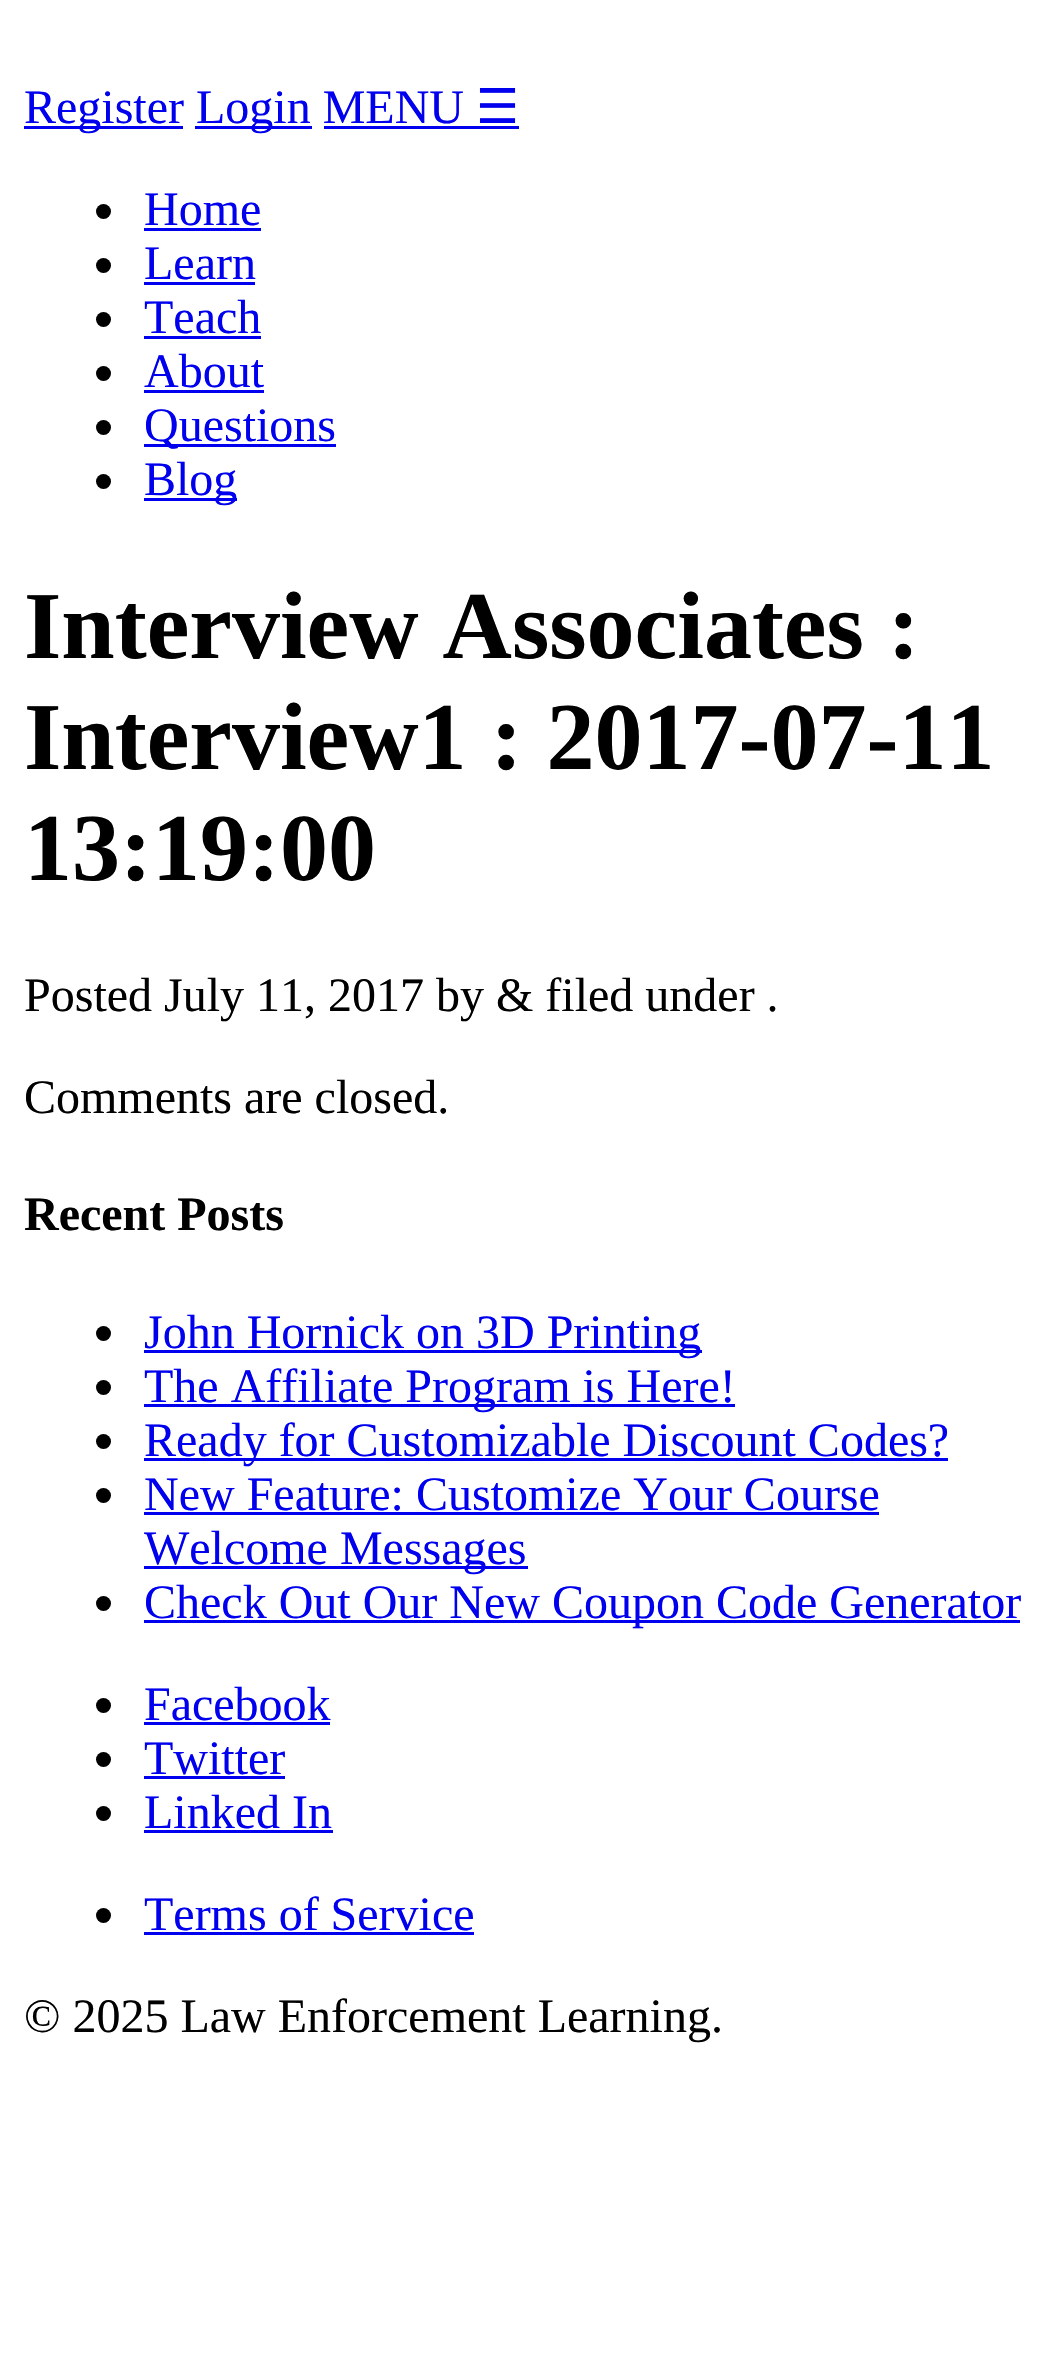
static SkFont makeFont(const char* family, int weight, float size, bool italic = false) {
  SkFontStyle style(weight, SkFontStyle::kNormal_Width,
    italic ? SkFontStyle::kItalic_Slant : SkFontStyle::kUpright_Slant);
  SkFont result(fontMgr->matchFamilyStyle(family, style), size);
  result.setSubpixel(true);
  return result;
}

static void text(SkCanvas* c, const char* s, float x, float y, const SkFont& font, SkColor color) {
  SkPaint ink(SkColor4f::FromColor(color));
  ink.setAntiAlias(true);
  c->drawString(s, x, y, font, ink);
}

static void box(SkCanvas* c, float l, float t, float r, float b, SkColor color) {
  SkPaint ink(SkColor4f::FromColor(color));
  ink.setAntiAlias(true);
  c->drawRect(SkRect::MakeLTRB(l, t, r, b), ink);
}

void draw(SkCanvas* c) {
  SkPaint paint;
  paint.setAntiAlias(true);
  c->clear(0xffffffff);
  box(c, 24, 126, 183, 129, 0xff0000ee);
  SkFont face1 = makeFont("Liberation Serif", 400, 48);
  text(c, "Register", 24, 123, face1, 0xff0000ee);
  box(c, 195, 126, 312, 129, 0xff0000ee);
  text(c, "Login MENU", 196, 123, face1, 0xff0000ee);
  SkFont face2 = makeFont("DejaVu Sans", 400, 48);
  text(c, "☰", 476, 123, face2, 0xff0000ee);
  box(c, 324, 126, 519, 129, 0xff0000ee);
  paint.setColor(0xff000000);
  c->drawCircle(103.5f, 211.5f, 7.5f, paint);
  text(c, "Home", 144, 225, face1, 0xff0000ee);
  box(c, 144, 228, 261, 231, 0xff0000ee);
  c->drawCircle(103.5f, 265.5f, 7.5f, paint);
  text(c, "Learn", 144, 279, face1, 0xff0000ee);
  box(c, 144, 282, 255, 285, 0xff0000ee);
  c->drawCircle(103.5f, 319.5f, 7.5f, paint);
  text(c, "Teach", 144, 333, face1, 0xff0000ee);
  box(c, 144, 336, 261, 339, 0xff0000ee);
  c->drawCircle(103.5f, 373.5f, 7.5f, paint);
  text(c, "About", 144, 387, face1, 0xff0000ee);
  box(c, 144, 390, 264, 393, 0xff0000ee);
  c->drawCircle(103.5f, 427.5f, 7.5f, paint);
  box(c, 144, 444, 336, 447, 0xff0000ee);
  text(c, "Questions", 144, 441, face1, 0xff0000ee);
  c->drawCircle(103.5f, 481.5f, 7.5f, paint);
  box(c, 144, 498, 237, 501, 0xff0000ee);
  text(c, "Blog", 144, 495, face1, 0xff0000ee);
  SkFont face3 = makeFont("Liberation Serif", 700, 96);
  text(c, "Interview Associates :", 24, 658, face3, 0xff000000);
  text(c, "Interview1 : 2017-07-11", 24, 769, face3, 0xff000000);
  text(c, "13:19:00", 24, 880, face3, 0xff000000);
  text(c, "Posted July 11, 2017 by & filed under .", 24, 1011, face1, 0xff000000);
  text(c, "Comments are closed.", 24, 1113, face1, 0xff000000);
  SkFont face4 = makeFont("Liberation Serif", 700, 48);
  text(c, "Recent Posts", 24, 1230, face4, 0xff000000);
  c->drawCircle(103.5f, 1333.5f, 7.5f, paint);
  box(c, 144, 1350, 702, 1353, 0xff0000ee);
  text(c, "John Hornick on 3D Printing", 144, 1348, face1, 0xff0000ee);
  c->drawCircle(103.5f, 1387.5f, 7.5f, paint);
  box(c, 144, 1404, 735, 1407, 0xff0000ee);
  text(c, "The Affiliate Program is Here!", 144, 1402, face1, 0xff0000ee);
  c->drawCircle(103.5f, 1441.5f, 7.5f, paint);
  box(c, 144, 1458, 948, 1461, 0xff0000ee);
  text(c, "Ready for Customizable Discount Codes?", 144, 1456, face1, 0xff0000ee);
  c->drawCircle(103.5f, 1495.5f, 7.5f, paint);
  text(c, "New Feature: Customize Your Course", 144, 1510, face1, 0xff0000ee);
  box(c, 144, 1512, 879, 1515, 0xff0000ee);
  box(c, 144, 1566, 528, 1569, 0xff0000ee);
  text(c, "Welcome Messages", 144, 1564, face1, 0xff0000ee);
  c->drawCircle(103.5f, 1603.5f, 7.5f, paint);
  box(c, 144, 1620, 1020, 1623, 0xff0000ee);
  text(c, "Check Out Our New Coupon Code Generator", 144, 1618, face1, 0xff0000ee);
  c->drawCircle(103.5f, 1705.5f, 7.5f, paint);
  text(c, "Facebook", 144, 1720, face1, 0xff0000ee);
  box(c, 144, 1722, 330, 1725, 0xff0000ee);
  c->drawCircle(103.5f, 1759.5f, 7.5f, paint);
  text(c, "Twitter", 144, 1774, face1, 0xff0000ee);
  box(c, 144, 1776, 285, 1779, 0xff0000ee);
  c->drawCircle(103.5f, 1813.5f, 7.5f, paint);
  text(c, "Linked In", 144, 1828, face1, 0xff0000ee);
  box(c, 144, 1830, 333, 1833, 0xff0000ee);
  c->drawCircle(103.5f, 1915.5f, 7.5f, paint);
  text(c, "Terms of Service", 144, 1930, face1, 0xff0000ee);
  box(c, 144, 1932, 474, 1935, 0xff0000ee);
  text(c, "© 2025 Law Enforcement Learning.", 24, 2032, face1, 0xff000000);
}
